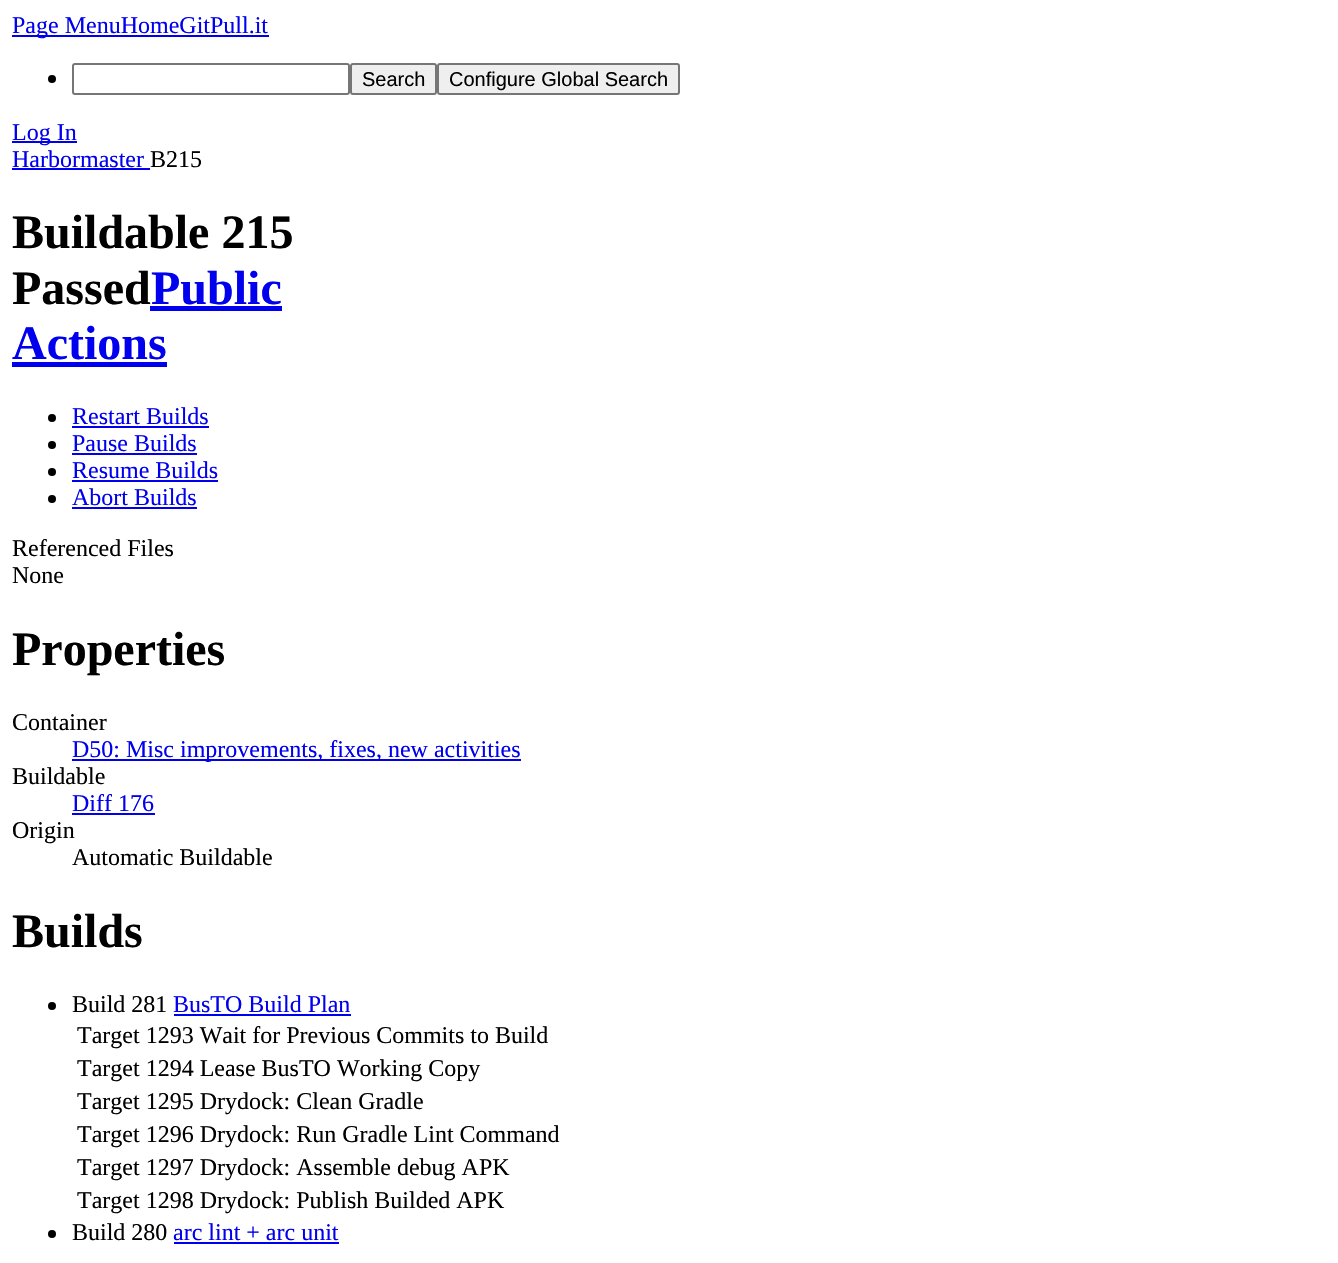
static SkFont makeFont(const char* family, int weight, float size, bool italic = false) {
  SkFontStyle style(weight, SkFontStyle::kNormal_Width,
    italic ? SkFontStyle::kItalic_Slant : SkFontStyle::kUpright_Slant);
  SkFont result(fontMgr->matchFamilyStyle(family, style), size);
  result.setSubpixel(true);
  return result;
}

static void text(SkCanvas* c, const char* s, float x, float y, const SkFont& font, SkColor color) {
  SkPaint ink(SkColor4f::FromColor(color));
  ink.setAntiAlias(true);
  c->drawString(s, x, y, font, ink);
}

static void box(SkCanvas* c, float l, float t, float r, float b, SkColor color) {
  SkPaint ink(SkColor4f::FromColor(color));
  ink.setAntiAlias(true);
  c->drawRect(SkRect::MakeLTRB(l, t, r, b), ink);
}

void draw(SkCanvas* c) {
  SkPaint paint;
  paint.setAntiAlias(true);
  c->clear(0xffffffff);
  box(c, 12, 35, 120, 37, 0xff0000ee);
  SkFont face1 = makeFont("Liberation Serif", 400, 24);
  text(c, "Page MenuHomeGitPull.it", 12, 33, face1, 0xff0000ee);
  box(c, 120, 35, 269, 37, 0xff0000ee);
  paint.setColor(0xff000000);
  c->drawCircle(52, 79, 4, paint);
  paint.setStyle(SkPaint::kStroke_Style);
  paint.setStrokeWidth(2);
  paint.setColor(0xff767676);
  c->drawRoundRect(SkRect::MakeLTRB(73, 64, 349, 94), 2, 2, paint);
  paint.setStyle(SkPaint::kFill_Style);
  paint.setColor(0xffefefef);
  c->drawRoundRect(SkRect::MakeLTRB(351, 64, 436, 94), 2, 2, paint);
  paint.setStyle(SkPaint::kStroke_Style);
  paint.setColor(0xff767676);
  c->drawRoundRect(SkRect::MakeLTRB(351, 64, 436, 94), 2, 2, paint);
  SkFont face2 = makeFont("Liberation Sans", 400, 20);
  text(c, "Search", 362, 86, face2, 0xff000000);
  paint.setStyle(SkPaint::kFill_Style);
  paint.setColor(0xffefefef);
  c->drawRoundRect(SkRect::MakeLTRB(438, 64, 679, 94), 2, 2, paint);
  paint.setStyle(SkPaint::kStroke_Style);
  paint.setColor(0xff767676);
  c->drawRoundRect(SkRect::MakeLTRB(438, 64, 679, 94), 2, 2, paint);
  text(c, "Configure Global Search", 449, 86, face2, 0xff000000);
  box(c, 12, 141, 77, 143, 0xff0000ee);
  text(c, "Log In", 12, 140, face1, 0xff0000ee);
  text(c, "Harbormaster", 12, 167, face1, 0xff0000ee);
  box(c, 12, 168, 150, 170, 0xff0000ee);
  text(c, "B215", 150, 167, face1, 0xff000000);
  SkFont face3 = makeFont("Liberation Serif", 700, 48);
  text(c, "Buildable 215", 12, 248, face3, 0xff000000);
  text(c, "Passed", 12, 304, face3, 0xff000000);
  text(c, "Public", 151, 304, face3, 0xff0000ee);
  box(c, 150, 306, 282, 311, 0xff0000ee);
  text(c, "Actions", 12, 359, face3, 0xff0000ee);
  box(c, 12, 362, 167, 367, 0xff0000ee);
  paint.setStyle(SkPaint::kFill_Style);
  paint.setColor(0xff000000);
  c->drawCircle(52, 418, 4, paint);
  text(c, "Restart Builds", 72, 424, face1, 0xff0000ee);
  box(c, 72, 426, 209, 428, 0xff0000ee);
  c->drawCircle(52, 445, 4, paint);
  text(c, "Pause Builds", 72, 451, face1, 0xff0000ee);
  box(c, 72, 453, 197, 455, 0xff0000ee);
  c->drawCircle(52, 472, 4, paint);
  text(c, "Resume Builds", 72, 478, face1, 0xff0000ee);
  box(c, 72, 480, 218, 482, 0xff0000ee);
  c->drawCircle(52, 499, 4, paint);
  text(c, "Abort Builds", 72, 505, face1, 0xff0000ee);
  box(c, 72, 507, 197, 509, 0xff0000ee);
  text(c, "Referenced Files", 12, 556, face1, 0xff000000);
  text(c, "None", 12, 583, face1, 0xff000000);
  text(c, "Properties", 12, 665, face3, 0xff000000);
  text(c, "Container", 12, 730, face1, 0xff000000);
  box(c, 72, 759, 521, 761, 0xff0000ee);
  text(c, "D50: Misc improvements, fixes, new activities", 72, 757, face1, 0xff0000ee);
  text(c, "Buildable", 12, 784, face1, 0xff000000);
  text(c, "Diff 176", 72, 811, face1, 0xff0000ee);
  box(c, 72, 813, 155, 815, 0xff0000ee);
  text(c, "Origin", 12, 838, face1, 0xff000000);
  text(c, "Automatic Buildable", 72, 865, face1, 0xff000000);
  text(c, "Builds", 12, 947, face3, 0xff000000);
  c->drawCircle(52, 1006, 4, paint);
  text(c, "Build 281", 72, 1012, face1, 0xff000000);
  text(c, "BusTO Build Plan", 173, 1012, face1, 0xff0000ee);
  box(c, 174, 1014, 351, 1016, 0xff0000ee);
  text(c, "Target 1293 Wait for Previous Commits to Build", 77, 1043, face1, 0xff000000);
  text(c, "Target 1294 Lease BusTO Working Copy", 77, 1076, face1, 0xff000000);
  text(c, "Target 1295 Drydock: Clean Gradle", 77, 1109, face1, 0xff000000);
  text(c, "Target 1296 Drydock: Run Gradle Lint Command", 77, 1142, face1, 0xff000000);
  text(c, "Target 1297 Drydock: Assemble debug APK", 77, 1175, face1, 0xff000000);
  text(c, "Target 1298 Drydock: Publish Builded APK", 77, 1208, face1, 0xff000000);
  c->drawCircle(52, 1234, 4, paint);
  text(c, "Build 280", 72, 1240, face1, 0xff000000);
  text(c, "arc lint + arc unit", 173, 1240, face1, 0xff0000ee);
  box(c, 174, 1242, 339, 1244, 0xff0000ee);
}
